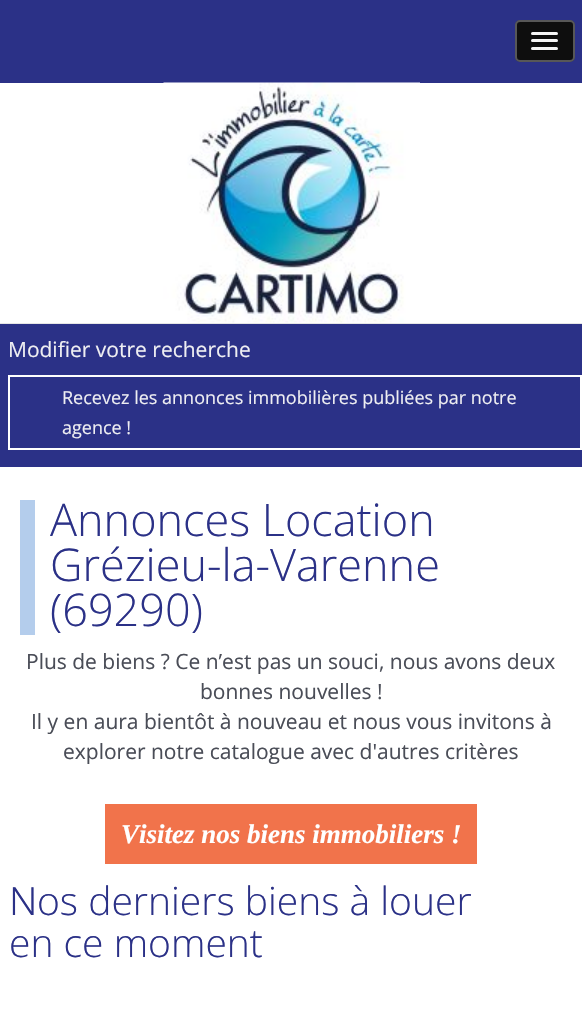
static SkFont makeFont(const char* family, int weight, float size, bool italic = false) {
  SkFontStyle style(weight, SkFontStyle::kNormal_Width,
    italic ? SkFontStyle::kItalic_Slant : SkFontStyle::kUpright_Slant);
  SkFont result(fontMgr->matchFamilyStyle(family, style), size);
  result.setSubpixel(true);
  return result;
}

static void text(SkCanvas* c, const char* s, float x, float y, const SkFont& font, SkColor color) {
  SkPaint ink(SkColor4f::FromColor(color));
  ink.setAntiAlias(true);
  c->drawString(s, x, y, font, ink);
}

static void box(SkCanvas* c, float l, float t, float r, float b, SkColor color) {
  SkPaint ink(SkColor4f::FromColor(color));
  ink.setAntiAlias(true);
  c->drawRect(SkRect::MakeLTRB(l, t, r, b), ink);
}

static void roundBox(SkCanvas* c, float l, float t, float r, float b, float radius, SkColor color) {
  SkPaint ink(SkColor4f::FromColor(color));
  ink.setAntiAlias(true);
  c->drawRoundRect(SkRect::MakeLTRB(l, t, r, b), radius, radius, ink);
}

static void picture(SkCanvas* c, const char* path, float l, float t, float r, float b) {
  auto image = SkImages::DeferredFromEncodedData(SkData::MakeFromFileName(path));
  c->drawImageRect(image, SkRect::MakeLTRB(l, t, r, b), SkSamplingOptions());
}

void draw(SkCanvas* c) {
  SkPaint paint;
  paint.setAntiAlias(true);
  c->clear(0xffffffff);
  box(c, 0, 0, 582, 83, 0xff2b3187);
  roundBox(c, 515, 20, 575, 62, 5, 0xff0e0e0e);
  paint.setStyle(SkPaint::kStroke_Style);
  paint.setStrokeWidth(2);
  paint.setColor(0x4dffffff);
  c->drawRoundRect(SkRect::MakeLTRB(516, 21, 574, 61), 4, 4, paint);
  paint.setStyle(SkPaint::kFill_Style);
  paint.setColor(0xff0b0b0b);
  c->drawPath(SkPathBuilder().moveTo(531, 33.5f).cubicTo(529.5f, 37, 536.5f, 36, 536.5f, 36).lineTo(552.5f, 36).cubicTo(552.5f, 36, 559.5f, 37, 558, 33.5f).cubicTo(557.5f, 34, 557, 34.5f, 556.5f, 34.5f).lineTo(532.5f, 34.5f).cubicTo(532, 34.5f, 531.5f, 34, 531, 33.5f).close().detach(), paint);
  roundBox(c, 531, 32, 558, 35, 1.5f, 0xfff5f5f5);
  c->drawPath(SkPathBuilder().moveTo(531.5f, 41.5f).lineTo(531, 43).cubicTo(531.5f, 45, 536, 44, 536.5f, 44).lineTo(552.5f, 44).cubicTo(553, 44, 557.5f, 45, 558, 43).lineTo(557.5f, 41.5f).lineTo(556.5f, 42).lineTo(532.5f, 42).close().detach(), paint);
  roundBox(c, 531, 39, 558, 42, 1.5f, 0xfff5f5f5);
  c->drawPath(SkPathBuilder().moveTo(531, 48.5f).cubicTo(529.5f, 52, 536.5f, 51, 536.5f, 51).lineTo(552.5f, 51).cubicTo(552.5f, 51, 559.5f, 52, 558, 48.5f).cubicTo(557.5f, 49, 557, 49.5f, 556.5f, 49.5f).lineTo(532.5f, 49.5f).cubicTo(532, 49.5f, 531.5f, 49, 531, 48.5f).close().detach(), paint);
  roundBox(c, 531, 47, 558, 50, 1.5f, 0xfff5f5f5);
  box(c, 0, 323, 582, 324, 0xffe6e6e6);
  picture(c, "img_01.png", 163, 82, 420, 323);
  box(c, 0, 324, 582, 467, 0xff2b3187);
  SkFont face1 = makeFont("Open Sans", 400, 21);
  text(c, "Modifier votre recherche", 8, 357, face1, 0xffeeeef2);
  paint.setStyle(SkPaint::kStroke_Style);
  paint.setColor(0xffffffff);
  c->drawRect(SkRect::MakeLTRB(9, 376, 581, 449), paint);
  SkFont face2 = makeFont("Open Sans", 400, 18);
  text(c, "Recevez les annonces immobilières publiées par notre", 62, 404, face2, 0xffeeeef2);
  text(c, "agence !", 62, 434, face2, 0xffeeeef2);
  box(c, 20, 500, 35, 635, 0xffb4cdec);
  SkFont face3 = makeFont("Open Sans", 300, 45);
  text(c, "Annonces Location", 50, 536, face3, 0xff2b3187);
  text(c, "Grézieu-la-Varenne", 50, 581, face3, 0xff2b3187);
  text(c, "(69290)", 50, 626, face3, 0xff2b3187);
  text(c, "Plus de biens ? Ce n’est pas un souci, nous avons deux", 26, 669, face1, 0xff4a4d57);
  text(c, "bonnes nouvelles !", 200, 699, face1, 0xff4a4d57);
  text(c, "Il y en aura bientôt à nouveau et nous vous invitons à", 31, 729, face1, 0xff4a4d57);
  text(c, "explorer notre catalogue avec d'autres critères", 63, 759, face1, 0xff4a4d57);
  box(c, 105, 804, 477, 864, 0xfff1734b);
  SkFont face4 = makeFont("Liberation Serif", 700, 27, true);
  text(c, "Visitez nos biens immobiliers !", 121, 843, face4, 0xffffffff);
  SkFont face5 = makeFont("Noto Sans", 300, 39);
  text(c, "N", 9, 915, face5, 0xff2b3187);
  SkFont face6 = makeFont("Open Sans", 300, 39);
  text(c, "os derniers biens à louer", 37, 915, face6, 0xff2b3187);
  text(c, "en ce moment", 9, 957, face6, 0xff2b3187);
}
